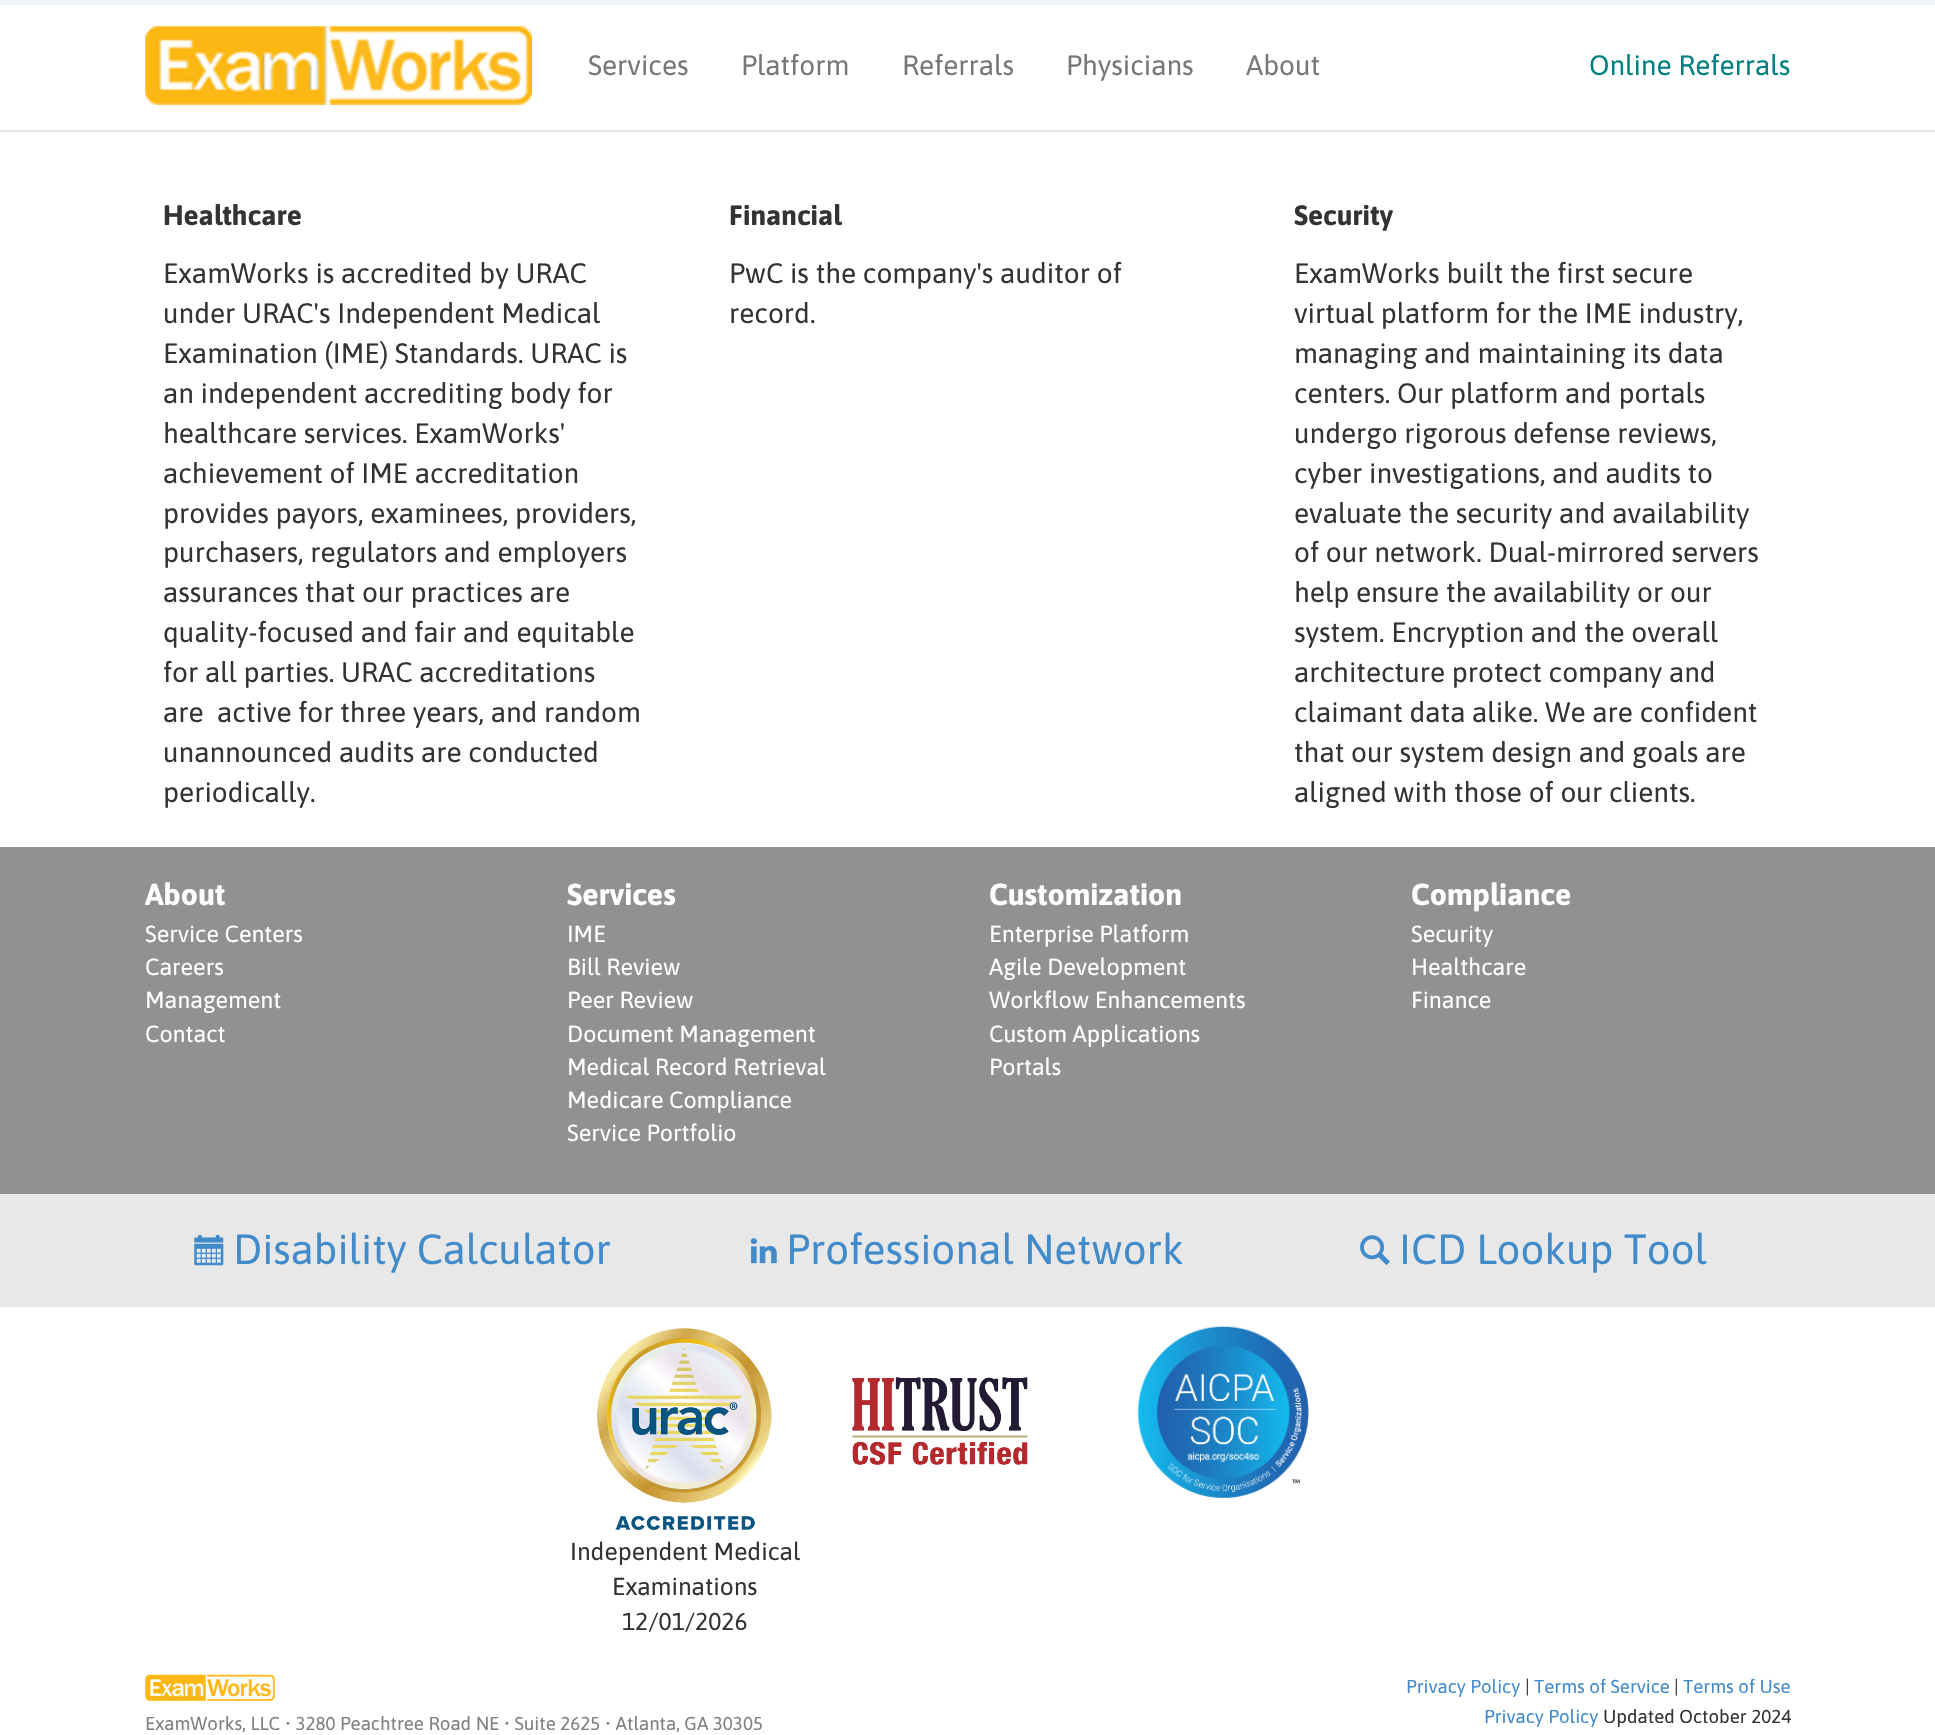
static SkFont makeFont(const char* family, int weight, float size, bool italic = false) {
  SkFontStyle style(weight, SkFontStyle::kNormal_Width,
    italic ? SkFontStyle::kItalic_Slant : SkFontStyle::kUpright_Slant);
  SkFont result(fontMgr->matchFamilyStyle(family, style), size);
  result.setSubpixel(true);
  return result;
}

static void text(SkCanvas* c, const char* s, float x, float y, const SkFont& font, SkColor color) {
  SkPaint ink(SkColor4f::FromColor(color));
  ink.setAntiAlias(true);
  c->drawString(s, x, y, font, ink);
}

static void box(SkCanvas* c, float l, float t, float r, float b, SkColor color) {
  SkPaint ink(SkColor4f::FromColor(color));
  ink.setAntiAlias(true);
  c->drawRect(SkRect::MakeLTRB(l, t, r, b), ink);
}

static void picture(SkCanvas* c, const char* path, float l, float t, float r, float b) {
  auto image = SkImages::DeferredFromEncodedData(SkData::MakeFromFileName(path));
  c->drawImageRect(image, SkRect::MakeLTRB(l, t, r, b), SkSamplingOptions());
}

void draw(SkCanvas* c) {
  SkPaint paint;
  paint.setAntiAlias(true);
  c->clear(0xffffffff);
  box(c, 0, 2, 1935, 5, 0xff165db1);
  box(c, 0, 2, 1935, 5, 0xedffffff);
  box(c, 0, 0, 1935, 2, 0xfff1f5fa);
  box(c, 0, 130, 1935, 132, 0xffe7e7e7);
  picture(c, "img_01.png", 145, 26, 532, 105);
  SkFont face1 = makeFont("Asap", 400, 28);
  text(c, "Services", 588, 75, face1, 0xff777777);
  text(c, "Platform", 741, 75, face1, 0xff777777);
  text(c, "Referrals", 902, 75, face1, 0xff777777);
  text(c, "Physicians", 1066, 75, face1, 0xff777777);
  text(c, "About", 1246, 75, face1, 0xff777777);
  text(c, "Online Referrals", 1589, 75, face1, 0xff008080);
  SkFont face2 = makeFont("Asap", 700, 28);
  text(c, "Healthcare", 163, 225, face2, 0xff333333);
  text(c, "ExamWorks is accredited by URAC", 163, 283, face1, 0xff333333);
  text(c, "under URAC's Independent Medical", 163, 323, face1, 0xff333333);
  text(c, "Examination (IME) Standards. URAC is", 163, 363, face1, 0xff333333);
  text(c, "an independent accrediting body for", 163, 403, face1, 0xff333333);
  text(c, "healthcare services. ExamWorks'", 163, 443, face1, 0xff333333);
  text(c, "achievement of IME accreditation", 163, 483, face1, 0xff333333);
  text(c, "provides payors, examinees, providers,", 163, 523, face1, 0xff333333);
  text(c, "purchasers, regulators and employers", 163, 562, face1, 0xff333333);
  text(c, "assurances that our practices are", 163, 602, face1, 0xff333333);
  text(c, "quality-focused and fair and equitable", 163, 642, face1, 0xff333333);
  text(c, "for all parties. URAC accreditations", 163, 682, face1, 0xff333333);
  text(c, "are  active for three years, and random", 163, 722, face1, 0xff333333);
  text(c, "unannounced audits are conducted", 163, 762, face1, 0xff333333);
  text(c, "periodically.", 163, 802, face1, 0xff333333);
  text(c, "Financial", 729, 225, face2, 0xff333333);
  text(c, "PwC is the company's auditor of", 729, 283, face1, 0xff333333);
  text(c, "record.", 729, 323, face1, 0xff333333);
  text(c, "Security", 1294, 225, face2, 0xff333333);
  text(c, "ExamWorks built the first secure", 1294, 283, face1, 0xff333333);
  text(c, "virtual platform for the IME industry,", 1294, 323, face1, 0xff333333);
  text(c, "managing and maintaining its data", 1294, 363, face1, 0xff333333);
  text(c, "centers. Our platform and portals", 1294, 403, face1, 0xff333333);
  text(c, "undergo rigorous defense reviews,", 1294, 443, face1, 0xff333333);
  text(c, "cyber investigations, and audits to", 1294, 483, face1, 0xff333333);
  text(c, "evaluate the security and availability", 1294, 523, face1, 0xff333333);
  text(c, "of our network. Dual-mirrored servers", 1294, 562, face1, 0xff333333);
  text(c, "help ensure the availability or our", 1294, 602, face1, 0xff333333);
  text(c, "system. Encryption and the overall", 1294, 642, face1, 0xff333333);
  text(c, "architecture protect company and", 1294, 682, face1, 0xff333333);
  text(c, "claimant data alike. We are confident", 1294, 722, face1, 0xff333333);
  text(c, "that our system design and goals are", 1294, 762, face1, 0xff333333);
  text(c, "aligned with those of our clients.", 1294, 802, face1, 0xff333333);
  box(c, 0, 847, 1935, 1194, 0xff919191);
  SkFont face3 = makeFont("Asap", 700, 30.25f);
  text(c, "About", 145, 905, face3, 0xffffffff);
  SkFont face4 = makeFont("Asap", 400, 23.25f);
  text(c, "Service Centers", 145, 942, face4, 0xffffffff);
  text(c, "Careers", 145, 975, face4, 0xffffffff);
  text(c, "Management", 145, 1008, face4, 0xffffffff);
  text(c, "Contact", 145, 1042, face4, 0xffffffff);
  text(c, "Services", 567, 905, face3, 0xffffffff);
  text(c, "IME", 567, 942, face4, 0xffffffff);
  text(c, "Bill Review", 567, 975, face4, 0xffffffff);
  text(c, "Peer Review", 567, 1008, face4, 0xffffffff);
  text(c, "Document Management", 567, 1042, face4, 0xffffffff);
  text(c, "Medical Record Retrieval", 567, 1075, face4, 0xffffffff);
  text(c, "Medicare Compliance", 567, 1108, face4, 0xffffffff);
  text(c, "Service Portfolio", 567, 1141, face4, 0xffffffff);
  text(c, "Customization", 989, 905, face3, 0xffffffff);
  text(c, "Enterprise Platform", 989, 942, face4, 0xffffffff);
  text(c, "Agile Development", 989, 975, face4, 0xffffffff);
  text(c, "Workflow Enhancements", 989, 1008, face4, 0xffffffff);
  text(c, "Custom Applications", 989, 1042, face4, 0xffffffff);
  text(c, "Portals", 989, 1075, face4, 0xffffffff);
  text(c, "Compliance", 1411, 905, face3, 0xffffffff);
  text(c, "Security", 1411, 942, face4, 0xffffffff);
  text(c, "Healthcare", 1411, 975, face4, 0xffffffff);
  text(c, "Finance", 1411, 1008, face4, 0xffffffff);
  box(c, 0, 1194, 1935, 1307, 0xffe8e8e8);
  picture(c, "img_02.png", 194, 1234, 224, 1266);
  SkFont face5 = makeFont("Asap", 400, 42);
  text(c, "Disability Calculator", 233, 1264, face5, 0xff428bca);
  picture(c, "img_03.png", 750, 1238, 777, 1264);
  text(c, "Professional Network", 786, 1264, face5, 0xff428bca);
  picture(c, "img_04.png", 1360, 1235, 1390, 1265);
  text(c, "ICD Lookup Tool", 1399, 1264, face5, 0xff428bca);
  picture(c, "img_05.png", 852, 1377, 1028, 1465);
  picture(c, "img_06.png", 1137, 1326, 1309, 1498);
  picture(c, "img_07.png", 596, 1328, 772, 1530);
  SkFont face6 = makeFont("Asap", 400, 24.5f);
  text(c, "Independent Medical", 570, 1560, face6, 0xff333333);
  text(c, "Examinations", 612, 1595, face6, 0xff333333);
  text(c, "12/01/2026", 622, 1630, face6, 0xff333333);
  picture(c, "img_08.png", 145, 1674, 275, 1701);
  SkFont face7 = makeFont("Asap", 400, 18.7f);
  text(c, "ExamWorks, LLC • 3280 Peachtree Road NE • Suite 2625 • Atlanta, GA 30305", 145, 1730, face7, 0xff808080);
  text(c, "Privacy Policy", 1406, 1693, face7, 0xff428bca);
  text(c, "|", 1525, 1693, face7, 0xff333333);
  text(c, "Terms of Service", 1534, 1693, face7, 0xff428bca);
  text(c, "|", 1674, 1693, face7, 0xff333333);
  text(c, "Terms of Use", 1683, 1693, face7, 0xff428bca);
  text(c, "Privacy Policy", 1484, 1723, face7, 0xff428bca);
  text(c, "Updated October 2024", 1603, 1723, face7, 0xff333333);
}
